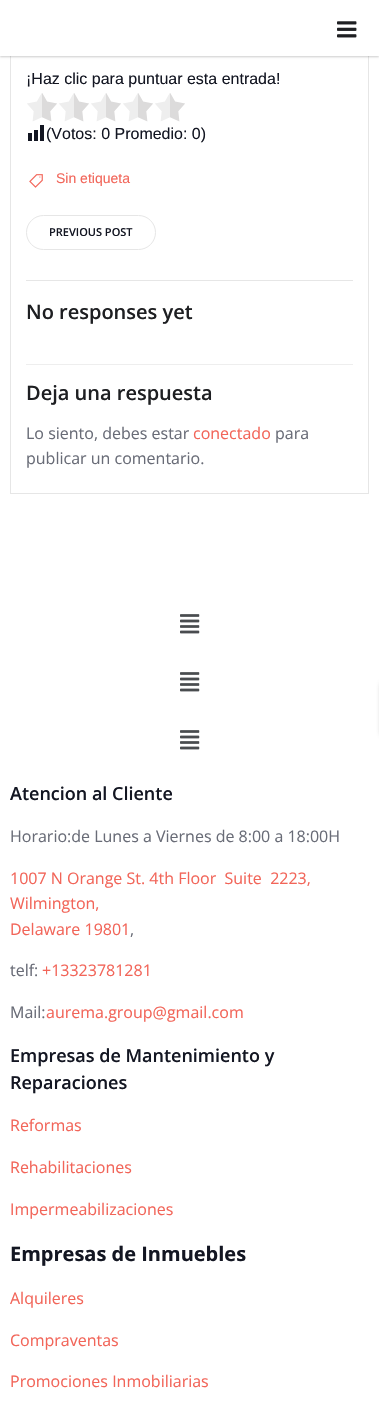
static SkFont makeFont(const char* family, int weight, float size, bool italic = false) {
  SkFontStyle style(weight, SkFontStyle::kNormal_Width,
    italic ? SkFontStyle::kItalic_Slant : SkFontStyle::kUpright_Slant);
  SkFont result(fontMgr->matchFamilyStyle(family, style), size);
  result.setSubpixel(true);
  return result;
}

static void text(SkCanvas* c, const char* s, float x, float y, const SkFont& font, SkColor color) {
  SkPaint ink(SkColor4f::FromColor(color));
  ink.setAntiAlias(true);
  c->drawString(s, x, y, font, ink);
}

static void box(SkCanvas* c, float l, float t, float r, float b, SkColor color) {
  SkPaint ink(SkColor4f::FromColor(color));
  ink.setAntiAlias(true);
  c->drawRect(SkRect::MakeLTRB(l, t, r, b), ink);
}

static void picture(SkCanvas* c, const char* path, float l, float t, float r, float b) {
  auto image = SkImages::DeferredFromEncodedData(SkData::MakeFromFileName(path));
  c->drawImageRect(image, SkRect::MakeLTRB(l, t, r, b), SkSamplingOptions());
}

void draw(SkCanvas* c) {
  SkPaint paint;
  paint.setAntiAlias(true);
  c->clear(0xffffffff);
  box(c, 368, 56, 369, 494, 0xffe6e6e6);
  box(c, 10, 56, 11, 281, 0xffe6e6e6);
  paint.setColor(0x33000000);
  paint.setMaskFilter(SkMaskFilter::MakeBlur(kNormal_SkBlurStyle, 1));
  c->drawRect(SkRect::MakeLTRB(0, 1, 379, 57), paint);
  paint.setMaskFilter(nullptr);
  box(c, 0, 0, 379, 56, 0xffffffff);
  picture(c, "img_01.png", 337, 21, 357, 38);
  SkFont face1 = makeFont("Liberation Sans", 400, 16);
  text(c, "¡Haz clic para puntuar esta entrada!", 26, 84, face1, 0xff131622);
  picture(c, "img_02.png", 27, 93, 185, 122);
  picture(c, "img_03.png", 28, 125, 44, 141);
  text(c, "(Votos: 0 Promedio: 0)", 46, 139, face1, 0xff131622);
  picture(c, "img_04.png", 29, 174, 43, 188);
  SkFont face2 = makeFont("Liberation Sans", 400, 14);
  text(c, "Sin etiqueta", 56, 183, face2, 0xfff26559);
  box(c, 26, 280, 353, 281, 0xffe6e6e6);
  paint.setStyle(SkPaint::kStroke_Style);
  paint.setStrokeWidth(1);
  paint.setColor(0xffe6e6e6);
  c->drawRoundRect(SkRect::MakeLTRB(26.5f, 215.5f, 155.5f, 249.5f), 17, 17, paint);
  SkFont face3 = makeFont("Open Sans", 600, 11);
  text(c, "PREVIOUS POST", 49, 236, face3, 0xff131622);
  box(c, 10, 493, 369, 494, 0xffe6e6e6);
  box(c, 10, 281, 11, 494, 0xffe6e6e6);
  SkFont face4 = makeFont("Open Sans", 600, 20);
  text(c, "No responses yet", 26, 319, face4, 0xff1e1f22);
  box(c, 26, 364, 353, 365, 0xffeeeeee);
  text(c, "Deja una respuesta", 26, 400, face4, 0xff1e1f22);
  SkFont face5 = makeFont("Open Sans", 400, 16);
  text(c, "Lo siento, debes estar", 26, 439, face5, 0xff696c77);
  text(c, "conectado", 193, 439, face5, 0xfff26559);
  text(c, "para", 275, 439, face5, 0xff696c77);
  text(c, "publicar un comentario.", 26, 464, face5, 0xff696c77);
  picture(c, "img_05.png", 180, 614, 200, 634);
  picture(c, "img_05.png", 180, 672, 200, 692);
  picture(c, "img_05.png", 180, 730, 200, 750);
  SkFont face6 = makeFont("Open Sans", 600, 18);
  text(c, "Atencion al Cliente", 10, 800, face6, 0xff131622);
  text(c, "Horario:de Lunes a Viernes de 8:00 a 18:00H", 10, 842, face5, 0xff696c77);
  text(c, "1007 N Orange St. 4th Floor  Suite  2223,", 10, 884, face5, 0xfff26559);
  text(c, "Wilmington,", 10, 909, face5, 0xfff26559);
  text(c, "Delaware 19801", 10, 935, face5, 0xfff26559);
  text(c, ",", 130, 935, face5, 0xff696c77);
  text(c, "telf:", 10, 976, face5, 0xff696c77);
  text(c, "+13323781281", 42, 976, face5, 0xfff26559);
  text(c, "Mail:", 10, 1018, face5, 0xff696c77);
  text(c, "aurema.group@gmail.com", 46, 1018, face5, 0xfff26559);
  text(c, "Empresas de Mantenimiento y", 10, 1062, face6, 0xff131622);
  text(c, "Reparaciones", 10, 1089, face6, 0xff131622);
  text(c, "Reformas", 10, 1131, face5, 0xfff26559);
  text(c, "Rehabilitaciones", 10, 1173, face5, 0xfff26559);
  text(c, "Impermeabilizaciones", 10, 1215, face5, 0xfff26559);
  SkFont face7 = makeFont("Open Sans", 700, 20);
  text(c, "Empresas de Inmuebles", 10, 1261, face7, 0xff131622);
  text(c, "Alquileres", 10, 1304, face5, 0xfff26559);
  text(c, "Compraventas", 10, 1346, face5, 0xfff26559);
  text(c, "Promociones Inmobiliarias", 10, 1387, face5, 0xfff26559);
  paint.setStyle(SkPaint::kFill_Style);
  paint.setColor(0xff777777);
  paint.setMaskFilter(SkMaskFilter::MakeBlur(kNormal_SkBlurStyle, 2.5f));
  c->drawRect(SkRect::MakeLTRB(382, 684, 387, 734), paint);
  paint.setMaskFilter(nullptr);
}
